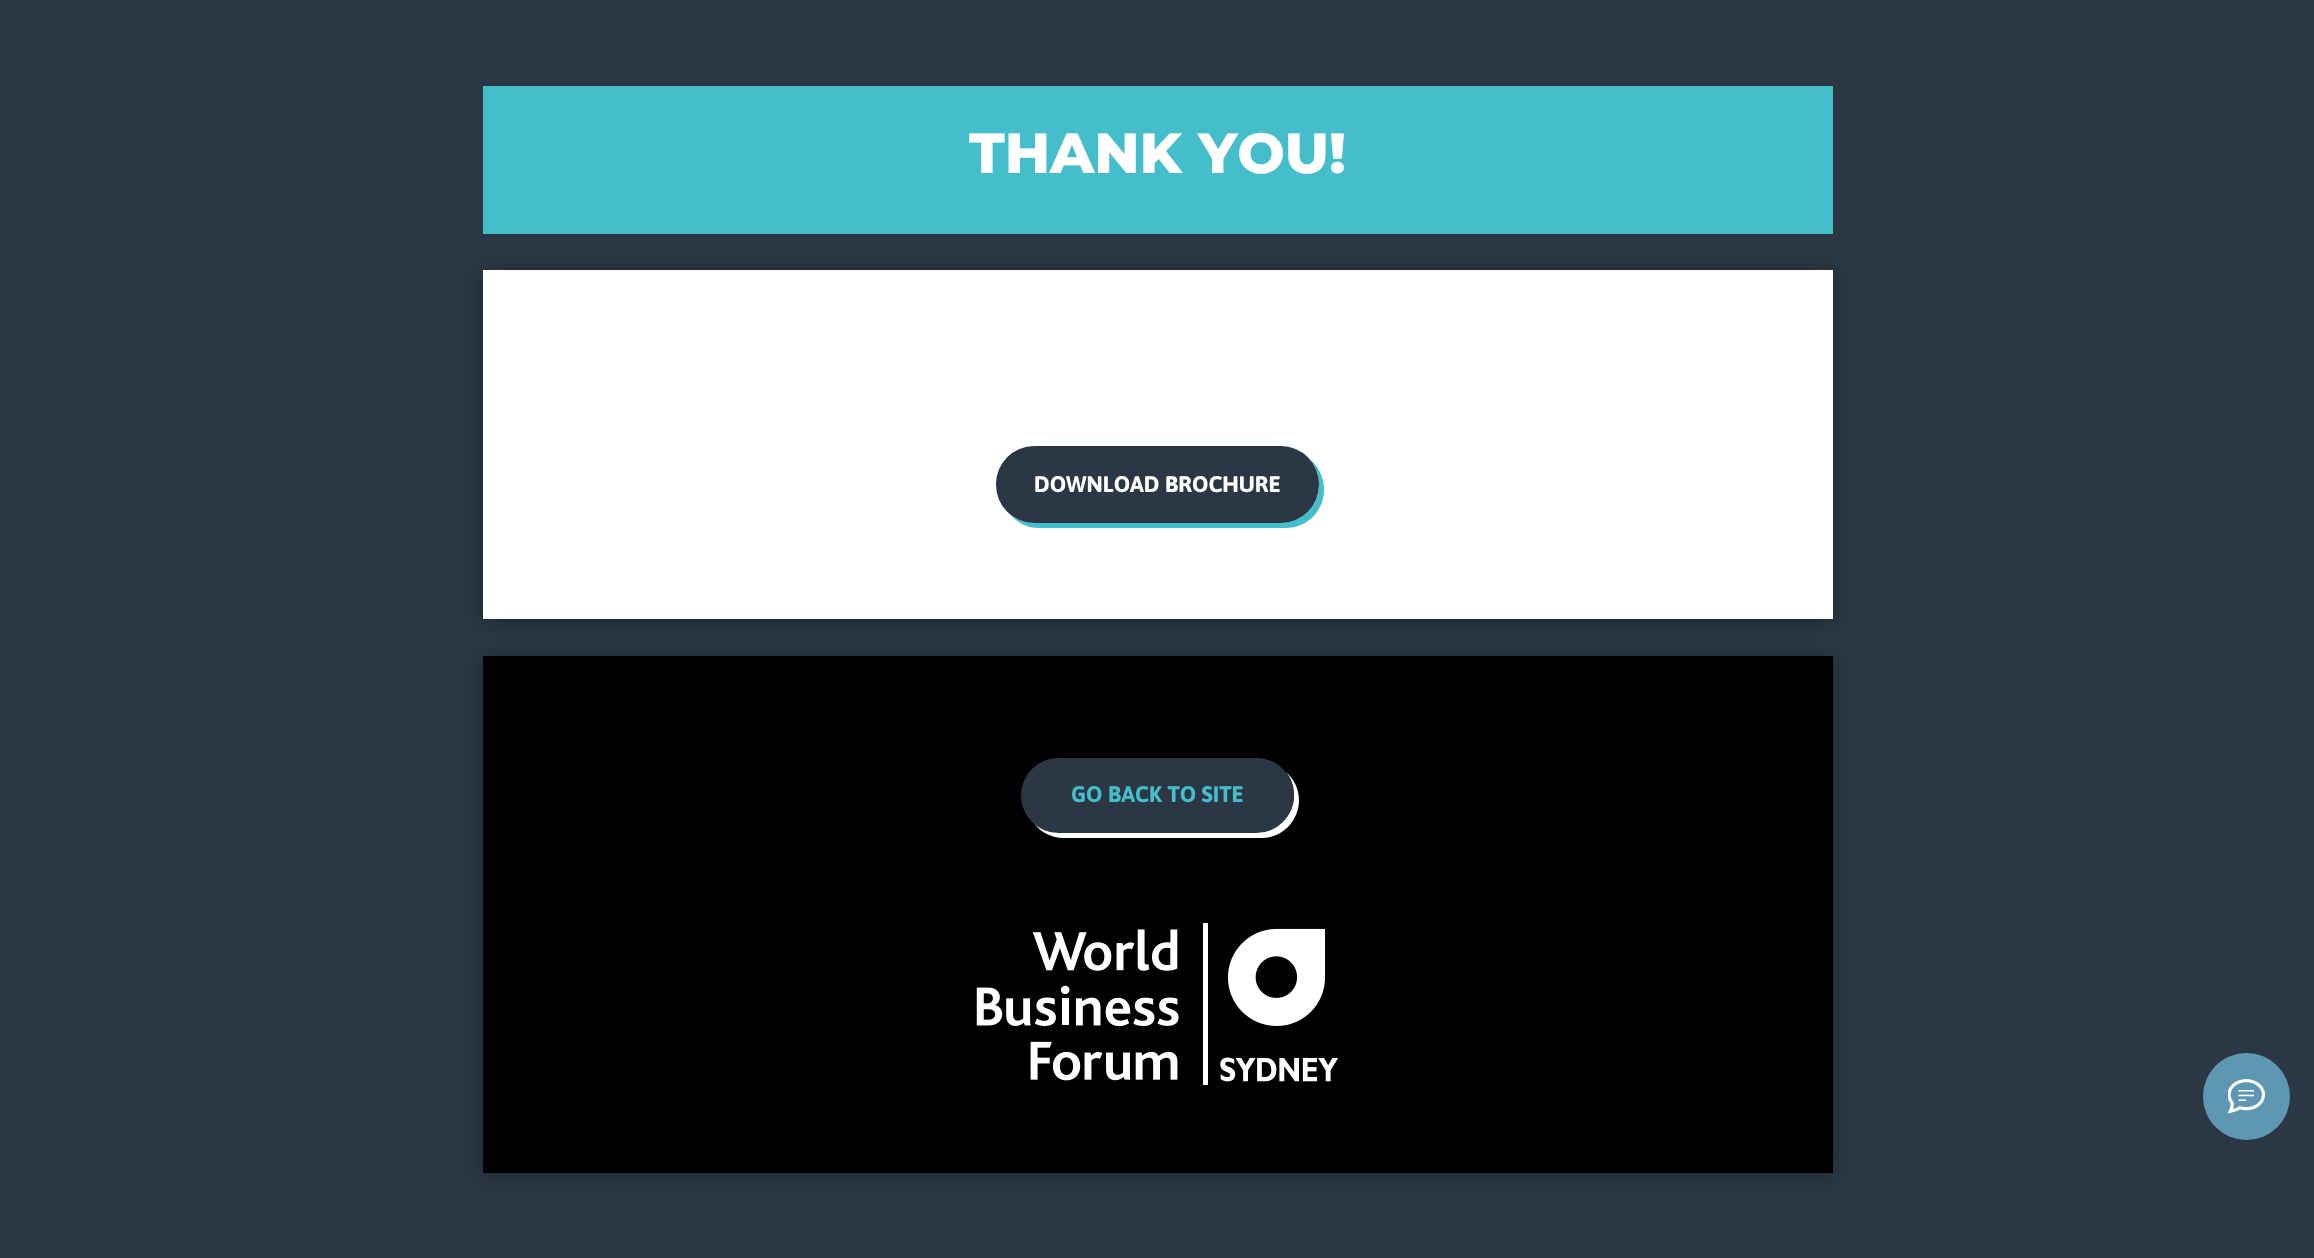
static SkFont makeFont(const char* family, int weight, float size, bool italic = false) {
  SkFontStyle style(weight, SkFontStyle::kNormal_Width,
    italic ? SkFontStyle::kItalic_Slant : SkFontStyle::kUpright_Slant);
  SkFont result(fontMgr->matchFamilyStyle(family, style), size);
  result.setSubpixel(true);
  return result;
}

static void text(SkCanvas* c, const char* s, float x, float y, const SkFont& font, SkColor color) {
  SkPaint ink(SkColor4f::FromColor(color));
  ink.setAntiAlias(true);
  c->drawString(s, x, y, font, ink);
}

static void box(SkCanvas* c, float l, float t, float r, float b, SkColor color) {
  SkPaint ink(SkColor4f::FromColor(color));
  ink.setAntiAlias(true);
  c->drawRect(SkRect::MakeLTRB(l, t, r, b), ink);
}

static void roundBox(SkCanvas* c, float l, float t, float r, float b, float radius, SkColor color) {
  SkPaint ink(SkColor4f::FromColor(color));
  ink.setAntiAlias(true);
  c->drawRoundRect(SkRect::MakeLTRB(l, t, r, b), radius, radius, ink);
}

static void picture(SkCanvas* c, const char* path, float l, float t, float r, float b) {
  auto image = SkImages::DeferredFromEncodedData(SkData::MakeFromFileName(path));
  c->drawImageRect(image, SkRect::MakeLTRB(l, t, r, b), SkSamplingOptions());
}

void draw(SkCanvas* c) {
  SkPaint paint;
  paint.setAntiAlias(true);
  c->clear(0xff2b3744);
  box(c, 483, 86, 1833, 234, 0xff44becb);
  SkFont face1 = makeFont("Montserrat", 800, 56.25f);
  text(c, "THANK YOU!", 969, 173, face1, 0xffffffff);
  paint.setColor(0x4d000000);
  paint.setMaskFilter(SkMaskFilter::MakeBlur(kNormal_SkBlurStyle, 11));
  c->drawRect(SkRect::MakeLTRB(483, 273, 1833, 621), paint);
  paint.setMaskFilter(nullptr);
  box(c, 483, 270, 1833, 619, 0xffffffff);
  paint.setColor(0xff44becb);
  c->drawPath(SkPathBuilder().moveTo(1009, 513).cubicTo(1016, 522, 1027, 528, 1039, 528).lineTo(1286, 528).cubicTo(1307, 528, 1324, 511, 1324, 490).lineTo(1324, 489).cubicTo(1324, 477, 1318, 466, 1310, 459).cubicTo(1315, 466, 1319, 474, 1319, 484).lineTo(1319, 485).cubicTo(1319, 506, 1302, 522, 1281, 522).lineTo(1034, 522).cubicTo(1024, 522, 1015, 519, 1009, 513).close().detach(), paint);
  roundBox(c, 996, 446, 1319, 523, 38, 0xff2b3744);
  SkFont face2 = makeFont("Asap", 700, 22.5f);
  text(c, "DOWNLOAD BROCHURE", 1034, 492, face2, 0xffffffff);
  paint.setColor(0x4d000000);
  paint.setMaskFilter(SkMaskFilter::MakeBlur(kNormal_SkBlurStyle, 11));
  c->drawRect(SkRect::MakeLTRB(483, 659, 1833, 1175), paint);
  paint.setMaskFilter(nullptr);
  box(c, 483, 656, 1833, 1173, 0xff000000);
  paint.setColor(0xffffffff);
  c->drawPath(SkPathBuilder().moveTo(1033, 822).cubicTo(1040, 832, 1051, 838, 1064, 838).lineTo(1262, 838).cubicTo(1282, 838, 1299, 821, 1299, 800).cubicTo(1299, 789, 1294, 779, 1286, 772).cubicTo(1291, 778, 1294, 786, 1294, 795).cubicTo(1294, 816, 1277, 832, 1256, 832).lineTo(1059, 832).cubicTo(1049, 832, 1040, 829, 1033, 822).close().detach(), paint);
  roundBox(c, 1021, 758, 1294, 833, 37.5f, 0xff2b3744);
  text(c, "GO BACK TO SITE", 1071, 802, face2, 0xff44becb);
  picture(c, "img_01.png", 976, 923, 1339, 1085);
  paint.setColor(0xff5e97b2);
  c->drawCircle(2246.5f, 1096.5f, 43.5f, paint);
  picture(c, "img_02.png", 2228, 1079, 2265, 1114);
}
